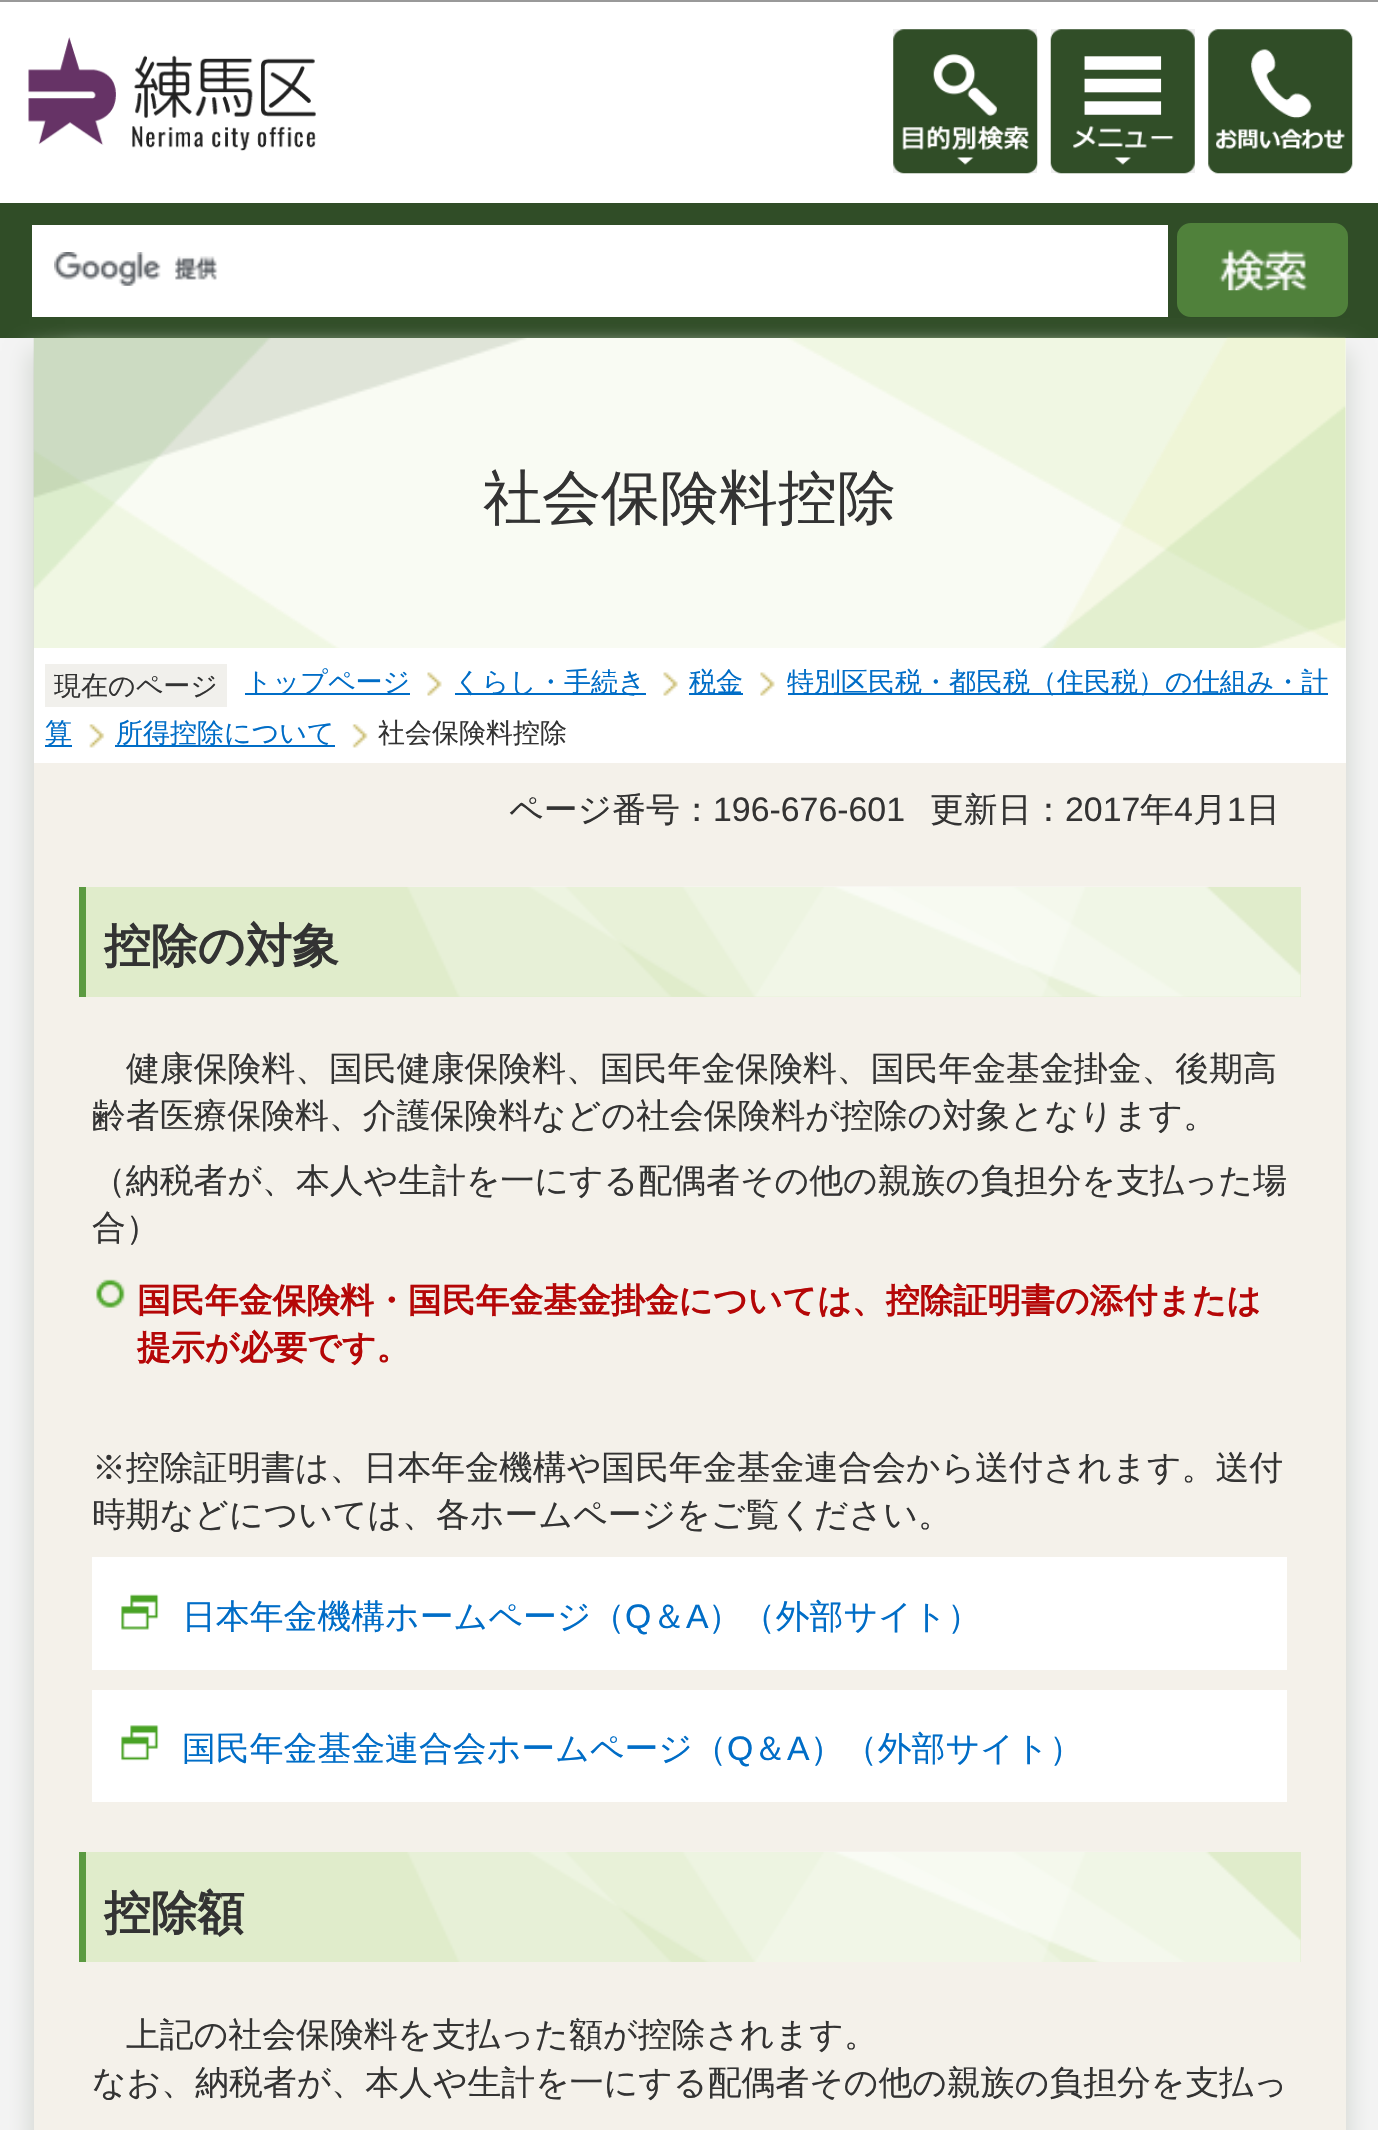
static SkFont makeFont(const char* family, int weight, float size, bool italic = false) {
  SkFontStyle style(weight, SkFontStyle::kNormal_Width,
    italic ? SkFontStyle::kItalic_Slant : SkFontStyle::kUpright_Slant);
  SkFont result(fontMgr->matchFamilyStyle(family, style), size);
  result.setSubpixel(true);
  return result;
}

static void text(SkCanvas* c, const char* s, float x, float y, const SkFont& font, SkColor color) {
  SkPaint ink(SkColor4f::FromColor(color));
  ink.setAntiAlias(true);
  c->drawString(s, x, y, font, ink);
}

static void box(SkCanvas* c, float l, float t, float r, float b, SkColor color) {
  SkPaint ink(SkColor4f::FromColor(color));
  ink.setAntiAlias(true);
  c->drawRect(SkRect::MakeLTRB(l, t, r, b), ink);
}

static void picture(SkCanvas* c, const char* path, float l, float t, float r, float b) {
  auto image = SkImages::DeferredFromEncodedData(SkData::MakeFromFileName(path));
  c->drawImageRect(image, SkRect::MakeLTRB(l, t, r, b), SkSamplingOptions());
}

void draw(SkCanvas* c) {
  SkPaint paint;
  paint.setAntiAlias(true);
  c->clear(0xffffffff);
  box(c, 0, 0, 1378, 2, 0xff999999);
  picture(c, "img_01.png", 28, 37, 316, 145);
  picture(c, "img_02.png", 132, 126, 316, 151);
  box(c, 893, 29, 1037, 173, 0xffefefef);
  picture(c, "img_03.png", 893, 29, 1038, 174);
  box(c, 1051, 29, 1195, 173, 0xffefefef);
  picture(c, "img_04.png", 1050, 29, 1195, 174);
  picture(c, "img_05.png", 1208, 29, 1353, 174);
  box(c, 0, 338, 1378, 2130, 0xfff4f4f4);
  box(c, 0, 203, 1378, 338, 0xff304d27);
  box(c, 32, 225, 1168, 317, 0xffffffff);
  picture(c, "img_06.png", 54, 252, 218, 286);
  paint.setColor(0xff50813b);
  c->drawRoundRect(SkRect::MakeLTRB(1178, 224, 1347, 316), 13, 13, paint);
  paint.setStyle(SkPaint::kStroke_Style);
  paint.setStrokeWidth(2);
  c->drawRoundRect(SkRect::MakeLTRB(1178, 224, 1347, 316), 13, 13, paint);
  picture(c, "img_07.png", 1219, 249, 1308, 291);
  paint.setStyle(SkPaint::kFill_Style);
  paint.setColor(0xffd6dad5);
  paint.setMaskFilter(SkMaskFilter::MakeBlur(kNormal_SkBlurStyle, 11));
  c->drawRect(SkRect::MakeLTRB(65, 351, 1350, 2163), paint);
  paint.setMaskFilter(nullptr);
  paint.setMaskFilter(SkMaskFilter::MakeBlur(kNormal_SkBlurStyle, 11));
  c->drawRect(SkRect::MakeLTRB(29, 351, 1314, 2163), paint);
  paint.setMaskFilter(nullptr);
  box(c, 34, 763, 1346, 2130, 0xfff4f1ea);
  box(c, 34, 338, 1346, 648, 0xfff9fbf3);
  picture(c, "img_08.png", 33, 337, 1346, 650);
  box(c, 34, 648, 1346, 763, 0xffffffff);
  SkFont face1 = makeFont("WenQuanYi Zen Hei", 500, 59);
  text(c, "社会保険料控除", 483, 518, face1, 0xff333333);
  box(c, 245, 693, 410, 695, 0xff006dc7);
  SkFont face2 = makeFont("WenQuanYi Zen Hei", 500, 27);
  text(c, "トップページ", 245, 691, face2, 0xff006dc7);
  picture(c, "img_09.png", 427, 672, 442, 696);
  box(c, 455, 693, 646, 695, 0xff006dc7);
  text(c, "くらし・手続き", 454, 691, face2, 0xff006dc7);
  picture(c, "img_10.png", 663, 672, 678, 696);
  box(c, 689, 693, 743, 695, 0xff006dc7);
  text(c, "税金", 689, 691, face2, 0xff006dc7);
  picture(c, "img_11.png", 760, 672, 775, 696);
  box(c, 788, 693, 1328, 695, 0xff006dc7);
  text(c, "特別区民税・都民税（住民税）の仕組み・計", 787, 691, face2, 0xff006dc7);
  box(c, 45, 745, 72, 747, 0xff006dc7);
  text(c, "算", 45, 742, face2, 0xff006dc7);
  picture(c, "img_12.png", 89, 724, 105, 748);
  box(c, 115, 745, 335, 747, 0xff006dc7);
  text(c, "所得控除について", 116, 742, face2, 0xff006dc7);
  picture(c, "img_13.png", 352, 724, 368, 748);
  text(c, "社会保険料控除", 378, 742, face2, 0xff333333);
  box(c, 45, 664, 227, 707, 0xfff1f0ec);
  text(c, "現在のページ", 54, 695, face2, 0xff333333);
  SkFont face3 = makeFont("WenQuanYi Zen Hei", 500, 33.85f);
  text(c, "ページ番号：", 509, 821, face3, 0xff333333);
  SkFont face4 = makeFont("Liberation Sans", 400, 33.85f);
  text(c, "196-676-601", 713, 821, face4, 0xff333333);
  text(c, "更新日：", 930, 821, face3, 0xff333333);
  text(c, "2017", 1065, 821, face4, 0xff333333);
  text(c, "年", 1140, 821, face3, 0xff333333);
  text(c, "4", 1174, 821, face4, 0xff333333);
  text(c, "月", 1193, 821, face3, 0xff333333);
  text(c, "1", 1227, 821, face4, 0xff333333);
  text(c, "日", 1246, 821, face3, 0xff333333);
  box(c, 86, 887, 1301, 997, 0xffe0eccb);
  picture(c, "img_14.png", 407, 886, 1301, 997);
  box(c, 79, 887, 86, 997, 0xff5b9a41);
  SkFont face5 = makeFont("WenQuanYi Zen Hei", 700, 46.75f);
  text(c, "控除の対象", 104, 962, face5, 0xff333333);
  text(c, "健康保険料、国民健康保険料、国民年金保険料、国民年金基金掛金、後期高", 126, 1080, face3, 0xff333333);
  text(c, "齢者医療保険料、介護保険料などの社会保険料が控除の対象となります。", 92, 1127, face3, 0xff333333);
  text(c, "（納税者が、本人や生計を一にする配偶者その他の親族の負担分を支払った場", 92, 1192, face3, 0xff333333);
  text(c, "合）", 92, 1239, face3, 0xff333333);
  picture(c, "img_15.png", 96, 1279, 125, 1308);
  SkFont face6 = makeFont("WenQuanYi Zen Hei", 700, 33.85f);
  text(c, "国民年金保険料・国民年金基金掛金については、控除証明書の添付または", 137, 1312, face6, 0xffb50707);
  text(c, "提示が必要です。", 137, 1359, face6, 0xffb50707);
  text(c, "※控除証明書は、日本年金機構や国民年金基金連合会から送付されます。送付", 92, 1479, face3, 0xff333333);
  text(c, "時期などについては、各ホームページをご覧ください。", 92, 1526, face3, 0xff333333);
  box(c, 92, 1557, 1287, 1670, 0xffffffff);
  picture(c, "img_16.png", 121, 1594, 159, 1630);
  text(c, "日本年金機構ホームページ（", 182, 1628, face3, 0xff006dc7);
  text(c, "Q", 625, 1628, face4, 0xff006dc7);
  text(c, "＆", 652, 1628, face3, 0xff006dc7);
  text(c, "A", 686, 1628, face4, 0xff006dc7);
  text(c, "）（外部サイト）", 708, 1628, face3, 0xff006dc7);
  box(c, 92, 1690, 1287, 1802, 0xffffffff);
  picture(c, "img_17.png", 121, 1725, 159, 1761);
  text(c, "国民年金基金連合会ホームページ（", 182, 1760, face3, 0xff006dc7);
  text(c, "Q", 727, 1760, face4, 0xff006dc7);
  text(c, "＆", 753, 1760, face3, 0xff006dc7);
  text(c, "A", 787, 1760, face4, 0xff006dc7);
  text(c, "）（外部サイト）", 810, 1760, face3, 0xff006dc7);
  box(c, 86, 1852, 1301, 1962, 0xffe0eccb);
  picture(c, "img_18.png", 407, 1851, 1301, 1962);
  box(c, 79, 1852, 86, 1962, 0xff5b9a41);
  text(c, "控除額", 104, 1929, face5, 0xff333333);
  text(c, "上記の社会保険料を支払った額が控除されます。", 126, 2046, face3, 0xff333333);
  text(c, "なお、納税者が、本人や生計を一にする配偶者その他の親族の負担分を支払っ", 92, 2094, face3, 0xff333333);
}
